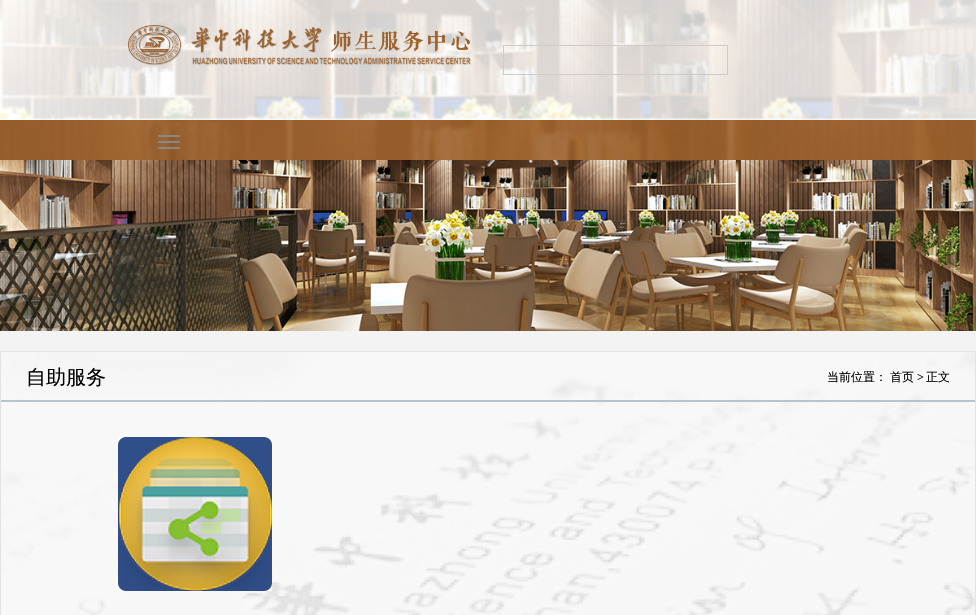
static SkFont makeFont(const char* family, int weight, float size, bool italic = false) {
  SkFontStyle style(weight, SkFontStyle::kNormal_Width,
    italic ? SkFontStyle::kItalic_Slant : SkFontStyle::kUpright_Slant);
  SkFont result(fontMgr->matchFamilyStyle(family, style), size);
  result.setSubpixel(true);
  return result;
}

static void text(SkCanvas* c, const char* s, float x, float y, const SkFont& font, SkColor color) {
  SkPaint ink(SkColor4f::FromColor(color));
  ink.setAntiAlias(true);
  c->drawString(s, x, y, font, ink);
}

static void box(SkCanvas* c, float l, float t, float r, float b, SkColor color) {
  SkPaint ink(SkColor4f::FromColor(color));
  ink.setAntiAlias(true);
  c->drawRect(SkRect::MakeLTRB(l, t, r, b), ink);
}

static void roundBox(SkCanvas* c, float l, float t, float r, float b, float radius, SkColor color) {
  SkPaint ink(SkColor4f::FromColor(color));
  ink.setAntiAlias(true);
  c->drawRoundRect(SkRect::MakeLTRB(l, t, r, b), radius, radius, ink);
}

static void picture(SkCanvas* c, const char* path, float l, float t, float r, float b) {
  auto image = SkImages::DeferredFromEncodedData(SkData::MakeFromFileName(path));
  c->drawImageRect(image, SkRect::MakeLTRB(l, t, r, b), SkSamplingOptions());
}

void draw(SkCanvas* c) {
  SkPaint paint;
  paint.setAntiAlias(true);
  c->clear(0xfff3f3f3);
  picture(c, "img_01.png", 0, 0, 976, 120);
  picture(c, "img_02.png", 128, 25, 471, 66);
  paint.setStyle(SkPaint::kStroke_Style);
  paint.setStrokeWidth(1);
  paint.setColor(0xffcccccc);
  c->drawRect(SkRect::MakeLTRB(503.5f, 45.5f, 727.5f, 74.5f), paint);
  picture(c, "img_03.png", 0, 120, 976, 160);
  roundBox(c, 158, 135, 180, 137, 1, 0xff888888);
  roundBox(c, 158, 141, 180, 143, 1, 0xff888888);
  roundBox(c, 158, 147, 180, 149, 1, 0xff888888);
  picture(c, "img_04.png", 0, 160, 976, 331);
  picture(c, "img_05.png", 1, 352, 975, 615);
  paint.setColor(0xffe3e3e3);
  c->drawRect(SkRect::MakeLTRB(0.5f, 351.5f, 975.5f, 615.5f), paint);
  box(c, 1, 400, 975, 402, 0xffb5c4cd);
  SkFont face1 = makeFont("WenQuanYi Zen Hei", 500, 20);
  text(c, "自助服务", 26, 384, face1, 0xff000000);
  SkFont face2 = makeFont("WenQuanYi Zen Hei", 500, 12);
  text(c, "当前位置：", 827, 381, face2, 0xff000000);
  text(c, "首页", 890, 381, face2, 0xff000000);
  SkFont face3 = makeFont("Liberation Serif", 400, 12);
  text(c, ">", 917, 381, face3, 0xff000000);
  text(c, "正文", 926, 381, face2, 0xff000000);
  picture(c, "img_06.png", 118, 437, 272, 591);
}
